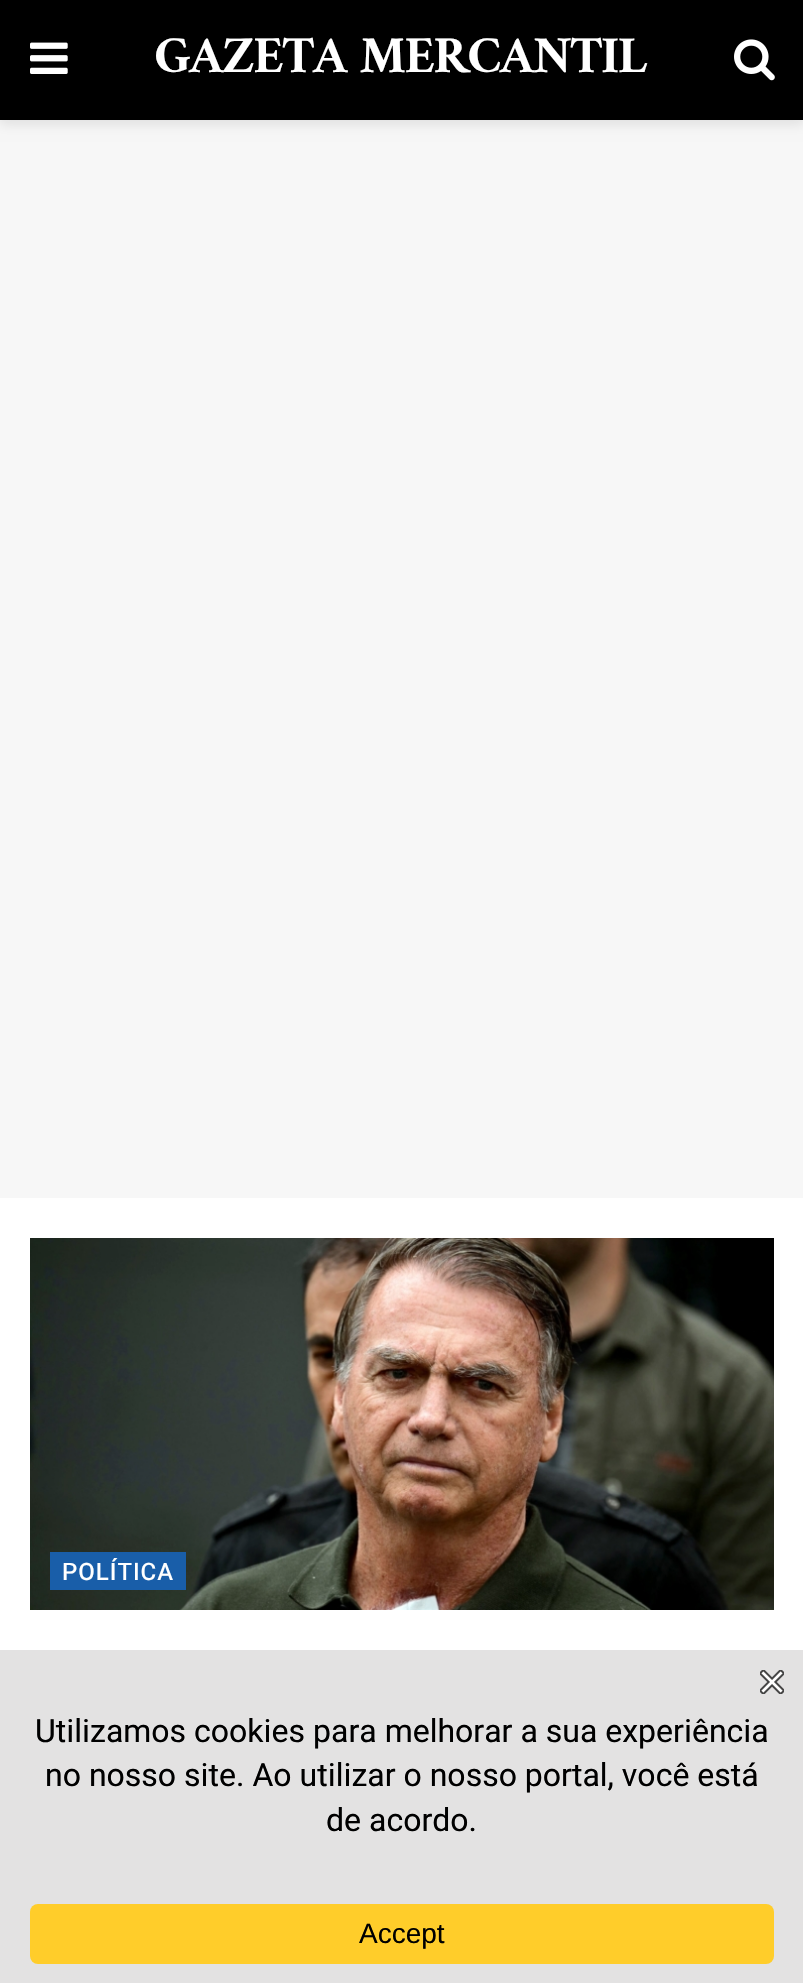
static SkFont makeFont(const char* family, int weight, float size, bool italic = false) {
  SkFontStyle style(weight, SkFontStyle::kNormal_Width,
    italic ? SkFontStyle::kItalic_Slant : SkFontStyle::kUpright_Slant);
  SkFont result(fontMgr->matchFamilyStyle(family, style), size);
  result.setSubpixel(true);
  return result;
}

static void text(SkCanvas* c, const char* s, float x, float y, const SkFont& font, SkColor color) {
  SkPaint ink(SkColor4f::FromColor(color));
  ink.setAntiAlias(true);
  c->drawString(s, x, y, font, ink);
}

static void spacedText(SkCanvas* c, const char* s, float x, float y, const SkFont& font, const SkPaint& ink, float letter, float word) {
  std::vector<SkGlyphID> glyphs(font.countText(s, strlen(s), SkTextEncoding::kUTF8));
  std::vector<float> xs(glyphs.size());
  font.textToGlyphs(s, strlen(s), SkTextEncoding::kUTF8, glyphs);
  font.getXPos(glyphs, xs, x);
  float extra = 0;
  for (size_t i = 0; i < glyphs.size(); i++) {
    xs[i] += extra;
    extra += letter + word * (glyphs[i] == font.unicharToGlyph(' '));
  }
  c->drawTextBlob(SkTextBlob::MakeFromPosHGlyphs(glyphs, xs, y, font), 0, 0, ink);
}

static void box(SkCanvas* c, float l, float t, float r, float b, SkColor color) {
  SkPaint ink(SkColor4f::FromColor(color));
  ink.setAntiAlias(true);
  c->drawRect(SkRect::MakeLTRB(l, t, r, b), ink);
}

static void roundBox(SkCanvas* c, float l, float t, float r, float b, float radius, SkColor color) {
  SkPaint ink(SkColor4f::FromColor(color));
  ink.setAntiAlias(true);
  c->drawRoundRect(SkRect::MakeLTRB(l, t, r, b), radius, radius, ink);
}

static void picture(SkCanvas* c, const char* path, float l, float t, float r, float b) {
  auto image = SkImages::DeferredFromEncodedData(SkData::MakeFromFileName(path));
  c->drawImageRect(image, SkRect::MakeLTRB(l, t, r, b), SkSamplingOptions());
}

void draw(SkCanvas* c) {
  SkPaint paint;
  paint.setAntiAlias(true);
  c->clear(0xffffffff);
  box(c, 0, 120, 803, 1198, 0xfff7f7f7);
  paint.setColor(0x1a000000);
  paint.setMaskFilter(SkMaskFilter::MakeBlur(kNormal_SkBlurStyle, 6));
  c->drawRect(SkRect::MakeLTRB(0, 4, 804, 124), paint);
  paint.setMaskFilter(nullptr);
  box(c, 0, 0, 803, 120, 0xff000000);
  picture(c, "img_01.png", 30, 42, 68, 74);
  SkFont face1 = makeFont("Amiri", 700, 52);
  paint.setColor(0xffffffff);
  spacedText(c, "GAZETA MERCANTIL", 154, 72, face1, paint, -1.4f, 0);
  picture(c, "img_02.png", 734, 39, 775, 81);
  picture(c, "img_03.png", 30, 1238, 774, 1610);
  box(c, 50, 1552, 186, 1590, 0xff195ea9);
  SkFont face2 = makeFont("Heebo", 500, 24);
  spacedText(c, "POLÍTICA", 62, 1580, face2, paint, 1, 0);
  box(c, 0, 1650, 803, 1983, 0xffe3e2e2);
  picture(c, "img_04.png", 760, 1670, 784, 1694);
  SkFont face3 = makeFont("Heebo", 400, 32);
  text(c, "Utilizamos cookies para melhorar a sua experiência", 35, 1742, face3, 0xff000000);
  text(c, "no nosso site. Ao utilizar o nosso portal, você está", 45, 1786, face3, 0xff000000);
  text(c, "de acordo.", 326, 1831, face3, 0xff000000);
  roundBox(c, 30, 1904, 774, 1964, 8, 0xffffcd2a);
  SkFont face4 = makeFont("Liberation Sans", 400, 28);
  text(c, "Accept", 359, 1943, face4, 0xff000000);
}
